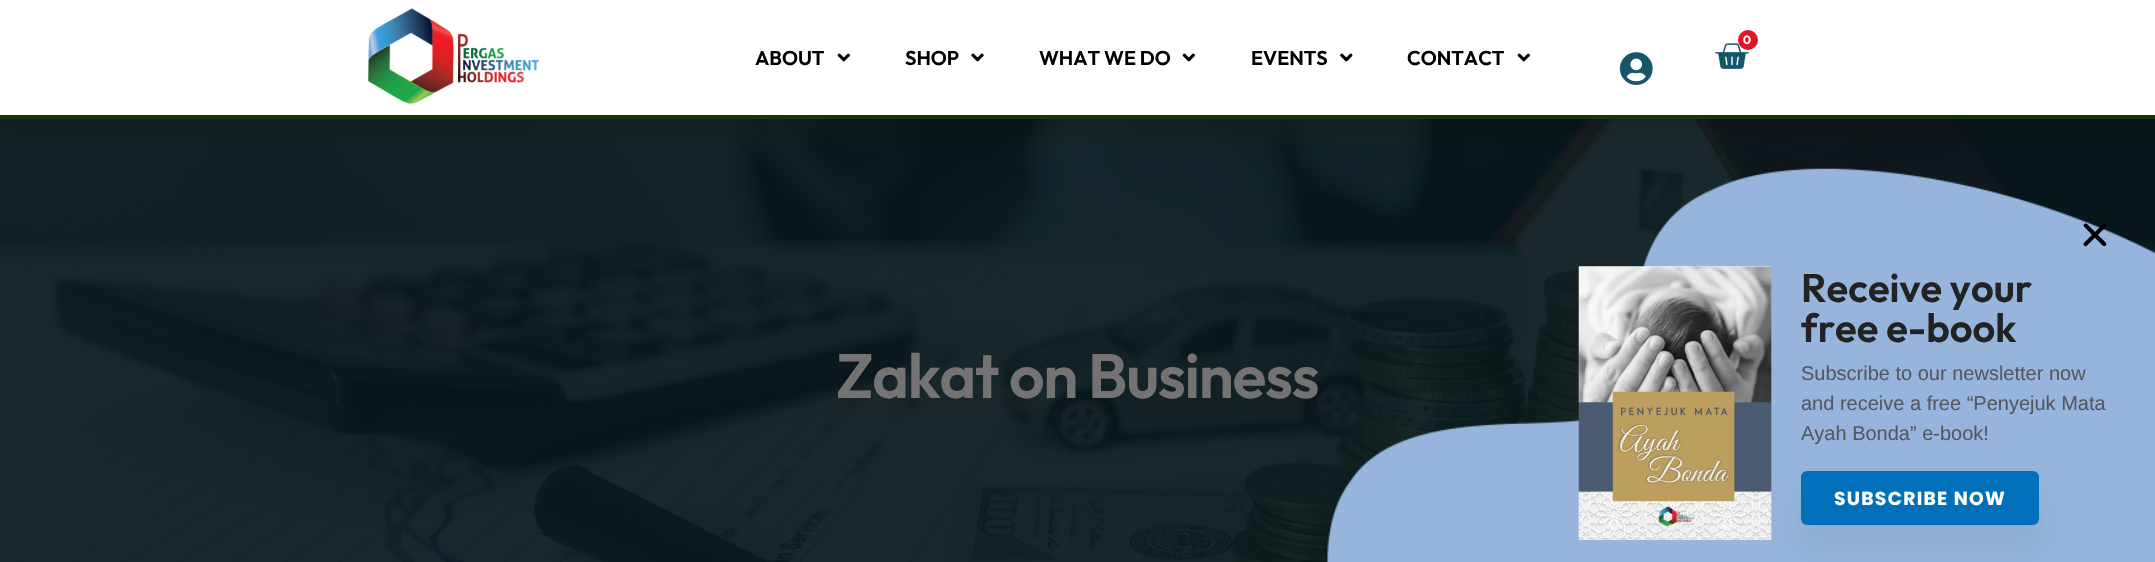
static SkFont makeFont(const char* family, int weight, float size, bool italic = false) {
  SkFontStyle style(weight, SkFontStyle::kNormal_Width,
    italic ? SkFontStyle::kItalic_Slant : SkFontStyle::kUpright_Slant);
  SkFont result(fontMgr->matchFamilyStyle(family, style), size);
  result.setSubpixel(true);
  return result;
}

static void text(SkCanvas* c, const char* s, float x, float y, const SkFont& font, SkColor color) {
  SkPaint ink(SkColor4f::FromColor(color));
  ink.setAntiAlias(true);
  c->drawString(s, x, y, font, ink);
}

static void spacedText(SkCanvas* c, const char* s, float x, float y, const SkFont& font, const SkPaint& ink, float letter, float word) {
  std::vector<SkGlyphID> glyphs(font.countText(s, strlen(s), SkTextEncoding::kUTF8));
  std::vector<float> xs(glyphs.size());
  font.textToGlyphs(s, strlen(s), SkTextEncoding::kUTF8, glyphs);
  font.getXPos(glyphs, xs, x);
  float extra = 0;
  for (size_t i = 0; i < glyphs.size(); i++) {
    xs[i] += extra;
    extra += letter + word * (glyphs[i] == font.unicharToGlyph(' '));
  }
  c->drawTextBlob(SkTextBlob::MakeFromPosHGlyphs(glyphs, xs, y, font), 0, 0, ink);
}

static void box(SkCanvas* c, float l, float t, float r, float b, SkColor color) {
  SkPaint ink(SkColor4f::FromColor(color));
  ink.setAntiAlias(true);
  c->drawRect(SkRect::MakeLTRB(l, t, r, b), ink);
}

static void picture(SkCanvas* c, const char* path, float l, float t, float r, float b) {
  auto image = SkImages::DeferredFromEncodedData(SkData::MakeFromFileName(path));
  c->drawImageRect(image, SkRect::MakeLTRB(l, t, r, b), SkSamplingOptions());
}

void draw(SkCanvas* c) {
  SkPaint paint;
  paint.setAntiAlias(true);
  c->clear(0xffffffff);
  box(c, 0, 115, 2155, 119, 0xff173a06);
  picture(c, "img_07.png", 0, 119, 2155, 562);
  paint.setColor(0x26000000);
  paint.setMaskFilter(SkMaskFilter::MakeBlur(kNormal_SkBlurStyle, 15));
  c->drawRect(SkRect::MakeLTRB(0, 0, 2155, 115), paint);
  paint.setMaskFilter(nullptr);
  box(c, 0, 0, 2155, 115, 0xffffffff);
  picture(c, "img_01.png", 368, 8, 540, 105);
  picture(c, "img_02.png", 1715, 43, 1749, 69);
  paint.setColor(0xffe0162b);
  c->drawCircle(1748, 40, 10, paint);
  SkFont face1 = makeFont("Outfit", 600, 12);
  text(c, "0", 1743, 44, face1, 0xffffffff);
  picture(c, "img_03.png", 1619, 52, 1653, 85);
  SkFont face2 = makeFont("Outfit", 600, 20);
  text(c, "ABOUT", 755, 65, face2, 0xff000000);
  picture(c, "img_04.png", 837, 53, 850, 62);
  text(c, "SHOP", 905, 65, face2, 0xff000000);
  picture(c, "img_05.png", 971, 53, 984, 62);
  text(c, "WHAT WE DO", 1039, 65, face2, 0xff000000);
  picture(c, "img_04.png", 1182, 53, 1195, 62);
  text(c, "EVENTS", 1251, 65, face2, 0xff000000);
  picture(c, "img_06.png", 1340, 53, 1353, 62);
  text(c, "CONTACT", 1407, 65, face2, 0xff000000);
  picture(c, "img_04.png", 1517, 53, 1530, 62);
  SkFont face3 = makeFont("Outfit", 600, 62.5f);
  paint.setColor(0xff737373);
  spacedText(c, "Zakat on Business", 836, 398, face3, paint, -1.25f, 0);
  picture(c, "img_08.png", 1327, 168, 2155, 562);
  picture(c, "img_09.png", 2083, 223, 2107, 247);
  picture(c, "img_10.png", 1578, 266, 1772, 540);
  SkFont face4 = makeFont("Outfit", 600, 40);
  text(c, "Receive your", 1801, 302, face4, 0xff222222);
  text(c, "free e-book", 1801, 342, face4, 0xff222222);
  SkFont face5 = makeFont("Liberation Sans", 400, 20);
  text(c, "Subscribe to our newsletter now", 1801, 380, face5, 0xff54595f);
  text(c, "and receive a free “Penyejuk Mata", 1801, 410, face5, 0xff54595f);
  text(c, "Ayah Bonda” e-book!", 1801, 440, face5, 0xff54595f);
  paint.setColor(0x0d000000);
  paint.setMaskFilter(SkMaskFilter::MakeBlur(kNormal_SkBlurStyle, 14));
  c->drawRoundRect(SkRect::MakeLTRB(1801, 494, 2039, 548), 6, 6, paint);
  paint.setMaskFilter(nullptr);
  paint.setColor(0xff0070ba);
  c->drawRoundRect(SkRect::MakeLTRB(1802.5f, 472.5f, 2037.5f, 523.5f), 4.5f, 4.5f, paint);
  paint.setStyle(SkPaint::kStroke_Style);
  paint.setStrokeWidth(3);
  c->drawRoundRect(SkRect::MakeLTRB(1802.5f, 472.5f, 2037.5f, 523.5f), 4.5f, 4.5f, paint);
  SkFont face6 = makeFont("Poppins", 700, 18.75f);
  paint.setStyle(SkPaint::kFill_Style);
  paint.setColor(0xffffffff);
  spacedText(c, "SUBSCRIBE NOW", 1834, 505, face6, paint, 1.25f, 0);
}
